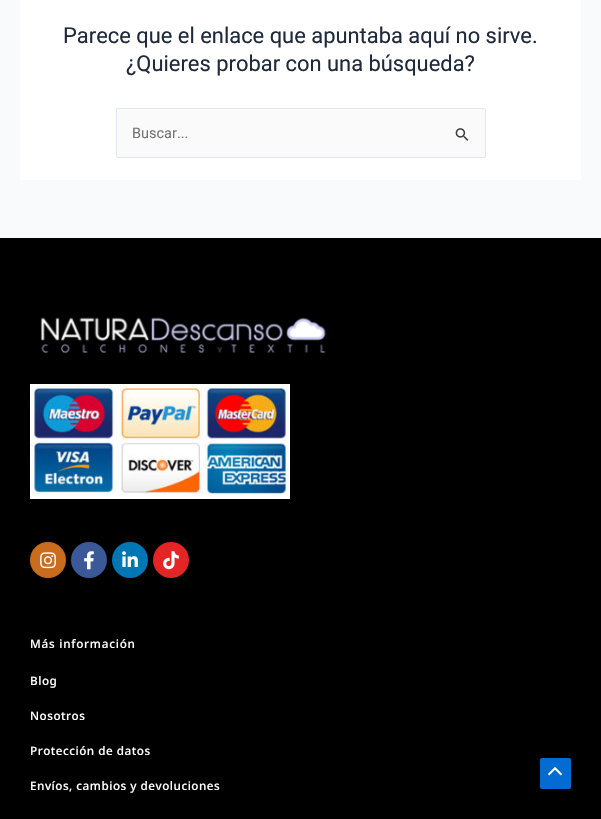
static SkFont makeFont(const char* family, int weight, float size, bool italic = false) {
  SkFontStyle style(weight, SkFontStyle::kNormal_Width,
    italic ? SkFontStyle::kItalic_Slant : SkFontStyle::kUpright_Slant);
  SkFont result(fontMgr->matchFamilyStyle(family, style), size);
  result.setSubpixel(true);
  return result;
}

static void text(SkCanvas* c, const char* s, float x, float y, const SkFont& font, SkColor color) {
  SkPaint ink(SkColor4f::FromColor(color));
  ink.setAntiAlias(true);
  c->drawString(s, x, y, font, ink);
}

static void spacedText(SkCanvas* c, const char* s, float x, float y, const SkFont& font, const SkPaint& ink, float letter, float word) {
  std::vector<SkGlyphID> glyphs(font.countText(s, strlen(s), SkTextEncoding::kUTF8));
  std::vector<float> xs(glyphs.size());
  font.textToGlyphs(s, strlen(s), SkTextEncoding::kUTF8, glyphs);
  font.getXPos(glyphs, xs, x);
  float extra = 0;
  for (size_t i = 0; i < glyphs.size(); i++) {
    xs[i] += extra;
    extra += letter + word * (glyphs[i] == font.unicharToGlyph(' '));
  }
  c->drawTextBlob(SkTextBlob::MakeFromPosHGlyphs(glyphs, xs, y, font), 0, 0, ink);
}

static void box(SkCanvas* c, float l, float t, float r, float b, SkColor color) {
  SkPaint ink(SkColor4f::FromColor(color));
  ink.setAntiAlias(true);
  c->drawRect(SkRect::MakeLTRB(l, t, r, b), ink);
}

static void roundBox(SkCanvas* c, float l, float t, float r, float b, float radius, SkColor color) {
  SkPaint ink(SkColor4f::FromColor(color));
  ink.setAntiAlias(true);
  c->drawRoundRect(SkRect::MakeLTRB(l, t, r, b), radius, radius, ink);
}

static void picture(SkCanvas* c, const char* path, float l, float t, float r, float b) {
  auto image = SkImages::DeferredFromEncodedData(SkData::MakeFromFileName(path));
  c->drawImageRect(image, SkRect::MakeLTRB(l, t, r, b), SkSamplingOptions());
}

void draw(SkCanvas* c) {
  SkPaint paint;
  paint.setAntiAlias(true);
  c->clear(0xfff9fafb);
  box(c, 20, 0, 581, 180, 0xffffffff);
  SkFont face1 = makeFont("Roboto", 400, 21.9f);
  text(c, "Parece que el enlace que apuntaba aquí no sirve.", 63, 43, face1, 0xff1e293b);
  text(c, "¿Quieres probar con una búsqueda?", 126, 71, face1, 0xff1e293b);
  paint.setColor(0xfffafafa);
  c->drawRoundRect(SkRect::MakeLTRB(116.5f, 108.5f, 485.5f, 157.5f), 1.5f, 1.5f, paint);
  paint.setStyle(SkPaint::kStroke_Style);
  paint.setStrokeWidth(1);
  paint.setColor(0xffe2e8f0);
  c->drawRoundRect(SkRect::MakeLTRB(116.5f, 108.5f, 485.5f, 157.5f), 1.5f, 1.5f, paint);
  SkFont face2 = makeFont("Roboto", 400, 14.5f);
  text(c, "Buscar...", 132, 138, face2, 0xff757575);
  picture(c, "img_01.png", 455, 128, 469, 141);
  box(c, 0, 238, 601, 819, 0xff000000);
  picture(c, "img_02.png", 40, 317, 327, 353);
  picture(c, "img_03.png", 30, 384, 290, 499);
  paint.setStyle(SkPaint::kFill_Style);
  paint.setColor(0xffca6c1d);
  c->drawCircle(48, 560, 18, paint);
  picture(c, "img_04.png", 40, 552, 56, 569);
  paint.setColor(0xff3b5998);
  c->drawCircle(89, 560, 18, paint);
  picture(c, "img_05.png", 84, 551, 94, 570);
  paint.setColor(0xff0077b5);
  c->drawCircle(130, 560, 18, paint);
  picture(c, "img_06.png", 122, 551, 138, 567);
  paint.setColor(0xffe42525);
  c->drawCircle(171, 560, 18, paint);
  picture(c, "img_07.png", 163, 551, 179, 570);
  SkFont face3 = makeFont("Noto Sans Thaana", 500, 11.7f);
  paint.setColor(0xffffffff);
  spacedText(c, "Más información", 30, 648, face3, paint, 0.75f, 0);
  spacedText(c, "Blog", 30, 685, face3, paint, 0.5f, 0);
  spacedText(c, "Nosotros", 30, 720, face3, paint, 0.5f, 0);
  spacedText(c, "Protección de datos", 30, 755, face3, paint, 0.5f, 0);
  spacedText(c, "Envíos, cambios y devoluciones", 30, 790, face3, paint, 0.5f, 0);
  roundBox(c, 540, 758, 571, 789, 2, 0xff046bd2);
  picture(c, "img_08.png", 548, 767, 563, 776);
}
